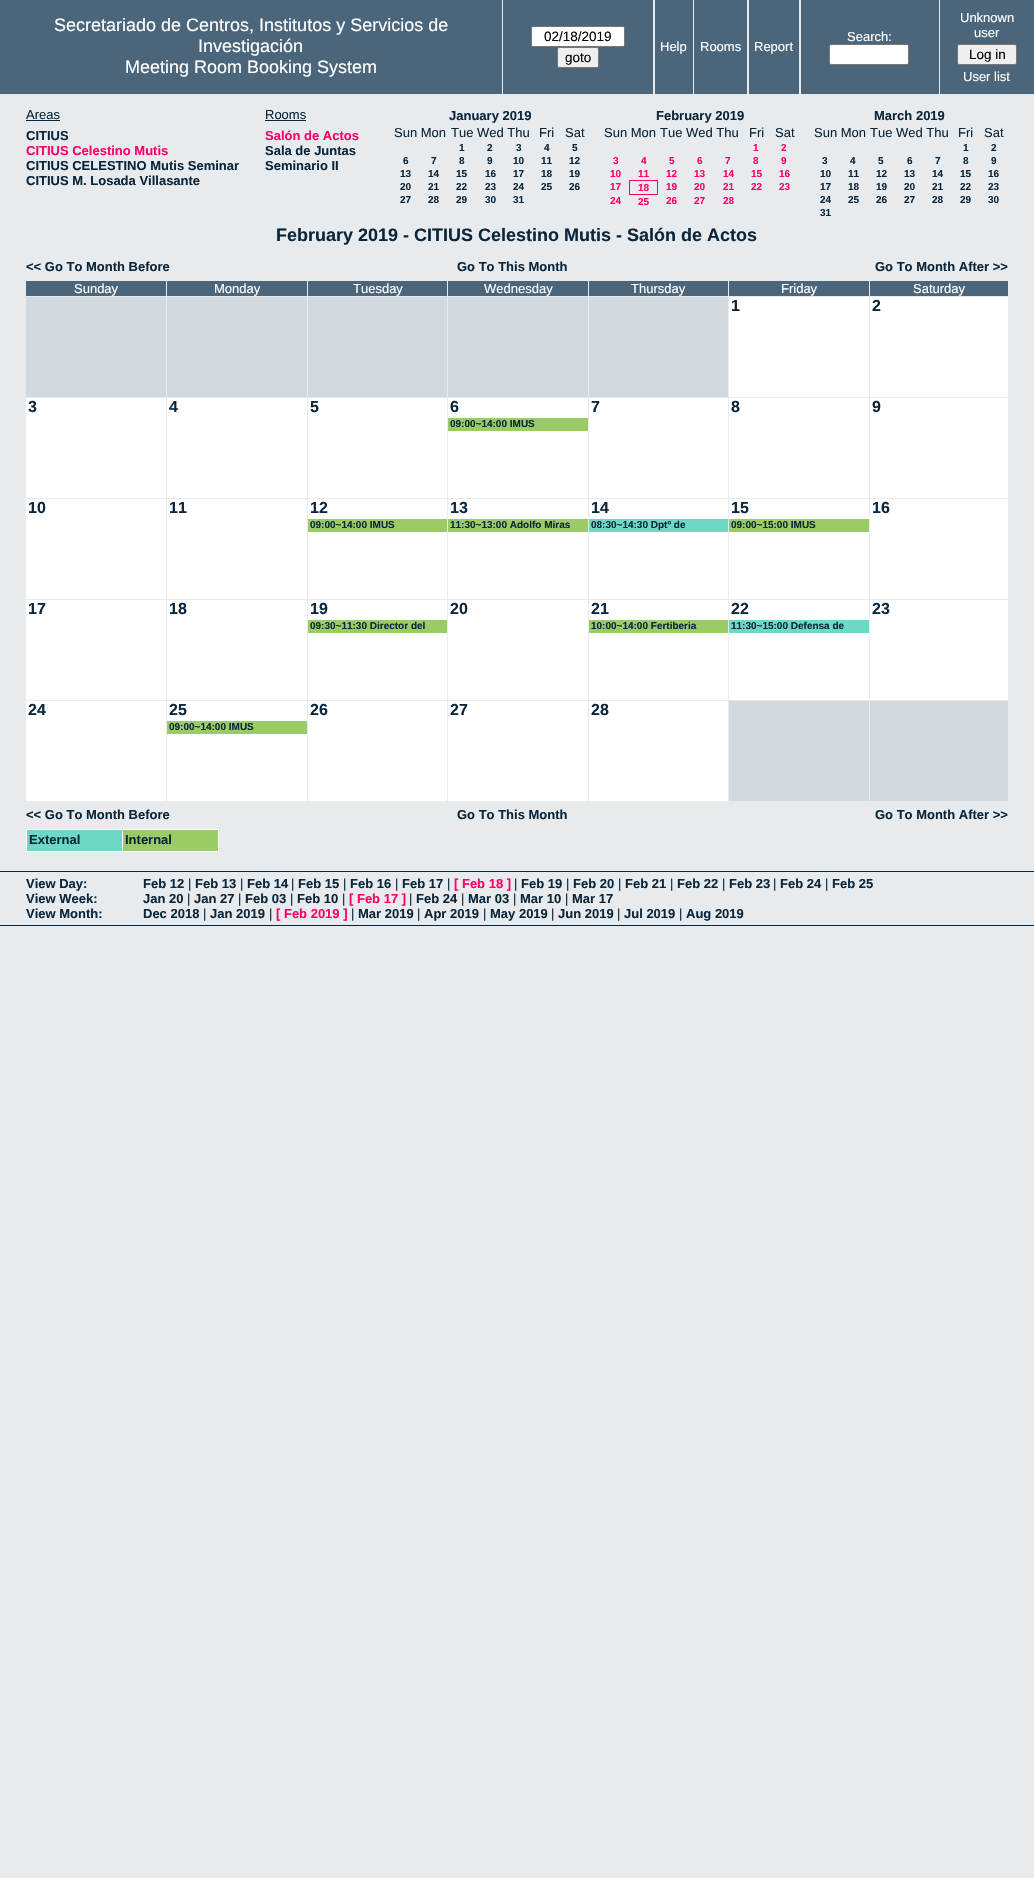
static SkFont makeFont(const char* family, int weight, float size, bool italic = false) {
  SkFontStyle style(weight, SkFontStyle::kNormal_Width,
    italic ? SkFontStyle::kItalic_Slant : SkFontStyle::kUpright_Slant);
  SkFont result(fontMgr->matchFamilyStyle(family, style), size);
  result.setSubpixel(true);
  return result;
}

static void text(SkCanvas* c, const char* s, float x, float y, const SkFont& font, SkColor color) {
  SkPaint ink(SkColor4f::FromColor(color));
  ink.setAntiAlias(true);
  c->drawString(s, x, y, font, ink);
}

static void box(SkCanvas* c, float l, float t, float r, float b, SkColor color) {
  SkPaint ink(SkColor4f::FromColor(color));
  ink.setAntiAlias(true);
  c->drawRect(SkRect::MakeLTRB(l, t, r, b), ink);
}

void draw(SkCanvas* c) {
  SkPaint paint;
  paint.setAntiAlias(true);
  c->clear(0xffe7ebee);
  box(c, 0, 0, 502, 94, 0xff4b667b);
  SkFont face1 = makeFont("Liberation Sans", 400, 18);
  text(c, "Secretariado de Centros, Institutos y Servicios de", 54, 31, face1, 0xffffffff);
  text(c, "Investigación", 198, 52, face1, 0xffffffff);
  text(c, "Meeting Room Booking System", 125, 73, face1, 0xffffffff);
  box(c, 503, 0, 653, 94, 0xff4b667b);
  paint.setColor(0xffffffff);
  c->drawRoundRect(SkRect::MakeLTRB(531.5f, 26.5f, 624.5f, 46.5f), 1.5f, 1.5f, paint);
  paint.setStyle(SkPaint::kStroke_Style);
  paint.setStrokeWidth(1);
  paint.setColor(0xff767676);
  c->drawRoundRect(SkRect::MakeLTRB(531.5f, 26.5f, 624.5f, 46.5f), 1.5f, 1.5f, paint);
  SkFont face2 = makeFont("Liberation Sans", 400, 13.5f);
  text(c, "02/18/2019", 544, 41, face2, 0xff000000);
  paint.setStyle(SkPaint::kFill_Style);
  paint.setColor(0xffefefef);
  c->drawRoundRect(SkRect::MakeLTRB(557.5f, 47.5f, 598.5f, 67.5f), 1.5f, 1.5f, paint);
  paint.setStyle(SkPaint::kStroke_Style);
  paint.setColor(0xff767676);
  c->drawRoundRect(SkRect::MakeLTRB(557.5f, 47.5f, 598.5f, 67.5f), 1.5f, 1.5f, paint);
  text(c, "goto", 565, 62, face2, 0xff000000);
  box(c, 801, 0, 939, 94, 0xff4b667b);
  SkFont face3 = makeFont("Liberation Sans", 400, 13);
  text(c, "Search:", 847, 41, face3, 0xffffffff);
  paint.setStyle(SkPaint::kFill_Style);
  paint.setColor(0xffffffff);
  c->drawRoundRect(SkRect::MakeLTRB(829.5f, 44.5f, 908.5f, 64.5f), 1.5f, 1.5f, paint);
  paint.setStyle(SkPaint::kStroke_Style);
  paint.setColor(0xff767676);
  c->drawRoundRect(SkRect::MakeLTRB(829.5f, 44.5f, 908.5f, 64.5f), 1.5f, 1.5f, paint);
  box(c, 940, 0, 1034, 94, 0xff4b667b);
  text(c, "Unknown", 960, 22, face3, 0xffffffff);
  text(c, "user", 974, 37, face3, 0xffffffff);
  paint.setStyle(SkPaint::kFill_Style);
  paint.setColor(0xffefefef);
  c->drawRoundRect(SkRect::MakeLTRB(957.5f, 44.5f, 1016.5f, 64.5f), 1.5f, 1.5f, paint);
  paint.setStyle(SkPaint::kStroke_Style);
  paint.setColor(0xff767676);
  c->drawRoundRect(SkRect::MakeLTRB(957.5f, 44.5f, 1016.5f, 64.5f), 1.5f, 1.5f, paint);
  text(c, "Log in", 969, 59, face2, 0xff000000);
  text(c, "User list", 963, 81, face3, 0xffffffff);
  box(c, 655, 0, 693, 94, 0xff4b667b);
  text(c, "Help", 660, 51, face3, 0xffffffff);
  box(c, 694, 0, 747, 94, 0xff4b667b);
  text(c, "Rooms", 700, 51, face3, 0xffffffff);
  box(c, 749, 0, 799, 94, 0xff4b667b);
  text(c, "Report", 754, 51, face3, 0xffffffff);
  text(c, "Areas", 26, 119, face3, 0xff0b263b);
  box(c, 26, 120, 60, 121, 0xff0b263b);
  SkFont face4 = makeFont("Liberation Sans", 700, 13);
  text(c, "CITIUS", 26, 140, face4, 0xff0b263b);
  text(c, "CITIUS Celestino Mutis", 26, 155, face4, 0xffff0066);
  text(c, "CITIUS CELESTINO Mutis Seminar", 26, 170, face4, 0xff0b263b);
  text(c, "CITIUS M. Losada Villasante", 26, 185, face4, 0xff0b263b);
  text(c, "Rooms", 265, 119, face3, 0xff0b263b);
  box(c, 265, 120, 306, 121, 0xff0b263b);
  text(c, "Salón de Actos", 265, 140, face4, 0xffff0066);
  text(c, "Sala de Juntas", 265, 155, face4, 0xff0b263b);
  text(c, "Seminario II", 265, 170, face4, 0xff0b263b);
  text(c, "January 2019", 449, 120, face4, 0xff0b263b);
  text(c, "Sun Mon", 394, 137, face3, 0xff0b263b);
  text(c, "Tue Wed Thu", 451, 137, face3, 0xff0b263b);
  text(c, "Fri", 539, 137, face3, 0xff0b263b);
  text(c, "Sat", 565, 137, face3, 0xff0b263b);
  SkFont face5 = makeFont("Liberation Sans", 700, 10);
  text(c, "1", 459, 151, face5, 0xff0b263b);
  text(c, "2", 487, 151, face5, 0xff0b263b);
  text(c, "3", 516, 151, face5, 0xff0b263b);
  text(c, "4", 544, 151, face5, 0xff0b263b);
  text(c, "5", 572, 151, face5, 0xff0b263b);
  text(c, "6", 403, 164, face5, 0xff0b263b);
  text(c, "7", 431, 164, face5, 0xff0b263b);
  text(c, "8", 459, 164, face5, 0xff0b263b);
  text(c, "9", 487, 164, face5, 0xff0b263b);
  text(c, "10", 513, 164, face5, 0xff0b263b);
  text(c, "11", 541, 164, face5, 0xff0b263b);
  text(c, "12", 569, 164, face5, 0xff0b263b);
  text(c, "13", 400, 177, face5, 0xff0b263b);
  text(c, "14", 428, 177, face5, 0xff0b263b);
  text(c, "15", 456, 177, face5, 0xff0b263b);
  text(c, "16", 485, 177, face5, 0xff0b263b);
  text(c, "17", 513, 177, face5, 0xff0b263b);
  text(c, "18", 541, 177, face5, 0xff0b263b);
  text(c, "19", 569, 177, face5, 0xff0b263b);
  text(c, "20", 400, 190, face5, 0xff0b263b);
  text(c, "21", 428, 190, face5, 0xff0b263b);
  text(c, "22", 456, 190, face5, 0xff0b263b);
  text(c, "23", 485, 190, face5, 0xff0b263b);
  text(c, "24", 513, 190, face5, 0xff0b263b);
  text(c, "25", 541, 190, face5, 0xff0b263b);
  text(c, "26", 569, 190, face5, 0xff0b263b);
  text(c, "27", 400, 203, face5, 0xff0b263b);
  text(c, "28", 428, 203, face5, 0xff0b263b);
  text(c, "29", 456, 203, face5, 0xff0b263b);
  text(c, "30", 485, 203, face5, 0xff0b263b);
  text(c, "31", 513, 203, face5, 0xff0b263b);
  text(c, "February 2019", 656, 120, face4, 0xff0b263b);
  text(c, "Sun Mon", 604, 137, face3, 0xff0b263b);
  text(c, "Tue Wed Thu", 660, 137, face3, 0xff0b263b);
  text(c, "Fri", 749, 137, face3, 0xff0b263b);
  text(c, "Sat", 775, 137, face3, 0xff0b263b);
  text(c, "1", 753, 151, face5, 0xffff0066);
  text(c, "2", 781, 151, face5, 0xffff0066);
  text(c, "3", 613, 164, face5, 0xffff0066);
  text(c, "4", 641, 164, face5, 0xffff0066);
  text(c, "5", 669, 164, face5, 0xffff0066);
  text(c, "6", 697, 164, face5, 0xffff0066);
  text(c, "7", 725, 164, face5, 0xffff0066);
  text(c, "8", 753, 164, face5, 0xffff0066);
  text(c, "9", 781, 164, face5, 0xffff0066);
  text(c, "10", 610, 177, face5, 0xffff0066);
  text(c, "11", 638, 177, face5, 0xffff0066);
  text(c, "12", 666, 177, face5, 0xffff0066);
  text(c, "13", 694, 177, face5, 0xffff0066);
  text(c, "14", 723, 177, face5, 0xffff0066);
  text(c, "15", 751, 177, face5, 0xffff0066);
  text(c, "16", 779, 177, face5, 0xffff0066);
  text(c, "17", 610, 190, face5, 0xffff0066);
  box(c, 629, 180, 658, 181, 0xffff0066);
  box(c, 657, 180, 658, 195, 0xffff0066);
  box(c, 629, 194, 658, 195, 0xffff0066);
  box(c, 629, 180, 630, 195, 0xffff0066);
  text(c, "18", 638, 191, face5, 0xffff0066);
  text(c, "19", 666, 190, face5, 0xffff0066);
  text(c, "20", 694, 190, face5, 0xffff0066);
  text(c, "21", 723, 190, face5, 0xffff0066);
  text(c, "22", 751, 190, face5, 0xffff0066);
  text(c, "23", 779, 190, face5, 0xffff0066);
  text(c, "24", 610, 204, face5, 0xffff0066);
  text(c, "25", 638, 205, face5, 0xffff0066);
  text(c, "26", 666, 204, face5, 0xffff0066);
  text(c, "27", 694, 204, face5, 0xffff0066);
  text(c, "28", 723, 204, face5, 0xffff0066);
  text(c, "March 2019", 874, 120, face4, 0xff0b263b);
  text(c, "Sun Mon", 814, 137, face3, 0xff0b263b);
  text(c, "Tue Wed Thu", 870, 137, face3, 0xff0b263b);
  text(c, "Fri", 958, 137, face3, 0xff0b263b);
  text(c, "Sat", 984, 137, face3, 0xff0b263b);
  text(c, "1", 963, 151, face5, 0xff0b263b);
  text(c, "2", 991, 151, face5, 0xff0b263b);
  text(c, "3", 822, 164, face5, 0xff0b263b);
  text(c, "4", 850, 164, face5, 0xff0b263b);
  text(c, "5", 878, 164, face5, 0xff0b263b);
  text(c, "6", 907, 164, face5, 0xff0b263b);
  text(c, "7", 935, 164, face5, 0xff0b263b);
  text(c, "8", 963, 164, face5, 0xff0b263b);
  text(c, "9", 991, 164, face5, 0xff0b263b);
  text(c, "10", 820, 177, face5, 0xff0b263b);
  text(c, "11", 848, 177, face5, 0xff0b263b);
  text(c, "12", 876, 177, face5, 0xff0b263b);
  text(c, "13", 904, 177, face5, 0xff0b263b);
  text(c, "14", 932, 177, face5, 0xff0b263b);
  text(c, "15", 960, 177, face5, 0xff0b263b);
  text(c, "16", 988, 177, face5, 0xff0b263b);
  text(c, "17", 820, 190, face5, 0xff0b263b);
  text(c, "18", 848, 190, face5, 0xff0b263b);
  text(c, "19", 876, 190, face5, 0xff0b263b);
  text(c, "20", 904, 190, face5, 0xff0b263b);
  text(c, "21", 932, 190, face5, 0xff0b263b);
  text(c, "22", 960, 190, face5, 0xff0b263b);
  text(c, "23", 988, 190, face5, 0xff0b263b);
  text(c, "24", 820, 203, face5, 0xff0b263b);
  text(c, "25", 848, 203, face5, 0xff0b263b);
  text(c, "26", 876, 203, face5, 0xff0b263b);
  text(c, "27", 904, 203, face5, 0xff0b263b);
  text(c, "28", 932, 203, face5, 0xff0b263b);
  text(c, "29", 960, 203, face5, 0xff0b263b);
  text(c, "30", 988, 203, face5, 0xff0b263b);
  text(c, "31", 820, 216, face5, 0xff0b263b);
  SkFont face6 = makeFont("Liberation Sans", 700, 18);
  text(c, "February 2019 - CITIUS Celestino Mutis - Salón de Actos", 276, 241, face6, 0xff0b263b);
  text(c, "<< Go To Month Before", 26, 271, face4, 0xff0b263b);
  text(c, "Go To This Month", 457, 271, face4, 0xff0b263b);
  text(c, "Go To Month After >>", 875, 271, face4, 0xff0b263b);
  box(c, 26, 281, 166, 296, 0xff4b667b);
  text(c, "Sunday", 74, 293, face3, 0xffffffff);
  box(c, 167, 281, 307, 296, 0xff4b667b);
  text(c, "Monday", 214, 293, face3, 0xffffffff);
  box(c, 308, 281, 447, 296, 0xff4b667b);
  text(c, "Tuesday", 353, 293, face3, 0xffffffff);
  box(c, 448, 281, 588, 296, 0xff4b667b);
  text(c, "Wednesday", 484, 293, face3, 0xffffffff);
  box(c, 589, 281, 728, 296, 0xff4b667b);
  text(c, "Thursday", 631, 293, face3, 0xffffffff);
  box(c, 729, 281, 869, 296, 0xff4b667b);
  text(c, "Friday", 781, 293, face3, 0xffffffff);
  box(c, 870, 281, 1008, 296, 0xff4b667b);
  text(c, "Saturday", 913, 293, face3, 0xffffffff);
  box(c, 26, 297, 166, 397, 0xffd1d9de);
  box(c, 167, 297, 307, 397, 0xffd1d9de);
  box(c, 308, 297, 447, 397, 0xffd1d9de);
  box(c, 448, 297, 588, 397, 0xffd1d9de);
  box(c, 589, 297, 728, 397, 0xffd1d9de);
  box(c, 729, 297, 869, 397, 0xffffffff);
  SkFont face7 = makeFont("Liberation Sans", 700, 16);
  text(c, "1", 731, 311, face7, 0xff0b263b);
  box(c, 870, 297, 1008, 397, 0xffffffff);
  text(c, "2", 872, 311, face7, 0xff0b263b);
  box(c, 26, 398, 166, 498, 0xffffffff);
  text(c, "3", 28, 412, face7, 0xff0b263b);
  box(c, 167, 398, 307, 498, 0xffffffff);
  text(c, "4", 169, 412, face7, 0xff0b263b);
  box(c, 308, 398, 447, 498, 0xffffffff);
  text(c, "5", 310, 412, face7, 0xff0b263b);
  box(c, 448, 398, 588, 498, 0xffffffff);
  text(c, "6", 450, 412, face7, 0xff0b263b);
  box(c, 448, 418, 588, 431, 0xff99cc66);
  text(c, "09:00~14:00 IMUS", 450, 427, face5, 0xff0b263b);
  box(c, 589, 398, 728, 498, 0xffffffff);
  text(c, "7", 591, 412, face7, 0xff0b263b);
  box(c, 729, 398, 869, 498, 0xffffffff);
  text(c, "8", 731, 412, face7, 0xff0b263b);
  box(c, 870, 398, 1008, 498, 0xffffffff);
  text(c, "9", 872, 412, face7, 0xff0b263b);
  box(c, 26, 499, 166, 599, 0xffffffff);
  text(c, "10", 28, 513, face7, 0xff0b263b);
  box(c, 167, 499, 307, 599, 0xffffffff);
  text(c, "11", 169, 513, face7, 0xff0b263b);
  box(c, 308, 499, 447, 599, 0xffffffff);
  text(c, "12", 310, 513, face7, 0xff0b263b);
  box(c, 308, 519, 447, 532, 0xff99cc66);
  text(c, "09:00~14:00 IMUS", 310, 528, face5, 0xff0b263b);
  box(c, 448, 499, 588, 599, 0xffffffff);
  text(c, "13", 450, 513, face7, 0xff0b263b);
  box(c, 448, 519, 588, 532, 0xff99cc66);
  text(c, "11:30~13:00 Adolfo Miras", 450, 528, face5, 0xff0b263b);
  box(c, 589, 499, 728, 599, 0xffffffff);
  text(c, "14", 591, 513, face7, 0xff0b263b);
  box(c, 589, 519, 728, 532, 0xff6dd9c4);
  text(c, "08:30~14:30 Dptº de", 591, 528, face5, 0xff0b263b);
  box(c, 729, 499, 869, 599, 0xffffffff);
  text(c, "15", 731, 513, face7, 0xff0b263b);
  box(c, 729, 519, 869, 532, 0xff99cc66);
  text(c, "09:00~15:00 IMUS", 731, 528, face5, 0xff0b263b);
  box(c, 870, 499, 1008, 599, 0xffffffff);
  text(c, "16", 872, 513, face7, 0xff0b263b);
  box(c, 26, 600, 166, 700, 0xffffffff);
  text(c, "17", 28, 614, face7, 0xff0b263b);
  box(c, 167, 600, 307, 700, 0xffffffff);
  text(c, "18", 169, 614, face7, 0xff0b263b);
  box(c, 308, 600, 447, 700, 0xffffffff);
  text(c, "19", 310, 614, face7, 0xff0b263b);
  box(c, 308, 620, 447, 633, 0xff99cc66);
  text(c, "09:30~11:30 Director del", 310, 629, face5, 0xff0b263b);
  box(c, 448, 600, 588, 700, 0xffffffff);
  text(c, "20", 450, 614, face7, 0xff0b263b);
  box(c, 589, 600, 728, 700, 0xffffffff);
  text(c, "21", 591, 614, face7, 0xff0b263b);
  box(c, 589, 620, 728, 633, 0xff99cc66);
  text(c, "10:00~14:00 Fertiberia", 591, 629, face5, 0xff0b263b);
  box(c, 729, 600, 869, 700, 0xffffffff);
  text(c, "22", 731, 614, face7, 0xff0b263b);
  box(c, 729, 620, 869, 633, 0xff6dd9c4);
  text(c, "11:30~15:00 Defensa de", 731, 629, face5, 0xff0b263b);
  box(c, 870, 600, 1008, 700, 0xffffffff);
  text(c, "23", 872, 614, face7, 0xff0b263b);
  box(c, 26, 701, 166, 801, 0xffffffff);
  text(c, "24", 28, 715, face7, 0xff0b263b);
  box(c, 167, 701, 307, 801, 0xffffffff);
  text(c, "25", 169, 715, face7, 0xff0b263b);
  box(c, 167, 721, 307, 734, 0xff99cc66);
  text(c, "09:00~14:00 IMUS", 169, 730, face5, 0xff0b263b);
  box(c, 308, 701, 447, 801, 0xffffffff);
  text(c, "26", 310, 715, face7, 0xff0b263b);
  box(c, 448, 701, 588, 801, 0xffffffff);
  text(c, "27", 450, 715, face7, 0xff0b263b);
  box(c, 589, 701, 728, 801, 0xffffffff);
  text(c, "28", 591, 715, face7, 0xff0b263b);
  box(c, 729, 701, 869, 801, 0xffd1d9de);
  box(c, 870, 701, 1008, 801, 0xffd1d9de);
  text(c, "<< Go To Month Before", 26, 819, face4, 0xff0b263b);
  text(c, "Go To This Month", 457, 819, face4, 0xff0b263b);
  text(c, "Go To Month After >>", 875, 819, face4, 0xff0b263b);
  box(c, 27, 830, 122, 851, 0xff6dd9c4);
  box(c, 122, 829, 219, 830, 0xffffffff);
  box(c, 218, 829, 219, 852, 0xffffffff);
  box(c, 122, 851, 219, 852, 0xffffffff);
  box(c, 122, 829, 123, 852, 0xffffffff);
  box(c, 26, 829, 123, 830, 0xffffffff);
  box(c, 26, 851, 123, 852, 0xffffffff);
  box(c, 26, 829, 27, 852, 0xffffffff);
  text(c, "External", 29, 844, face4, 0xff0b263b);
  box(c, 123, 830, 218, 851, 0xff99cc66);
  text(c, "Internal", 125, 844, face4, 0xff0b263b);
  box(c, 0, 871, 1034, 872, 0xff0b263b);
  box(c, 0, 925, 1034, 926, 0xff0b263b);
  text(c, "View Day:", 26, 888, face4, 0xff0b263b);
  text(c, "Feb 12", 143, 888, face4, 0xff0b263b);
  text(c, "|", 188, 888, face3, 0xff0b263b);
  text(c, "Feb 13", 195, 888, face4, 0xff0b263b);
  text(c, "|", 240, 888, face3, 0xff0b263b);
  text(c, "Feb 14", 247, 888, face4, 0xff0b263b);
  text(c, "|", 291, 888, face3, 0xff0b263b);
  text(c, "Feb 15", 298, 888, face4, 0xff0b263b);
  text(c, "|", 343, 888, face3, 0xff0b263b);
  text(c, "Feb 16", 350, 888, face4, 0xff0b263b);
  text(c, "|", 395, 888, face3, 0xff0b263b);
  text(c, "Feb 17", 402, 888, face4, 0xff0b263b);
  text(c, "|", 447, 888, face3, 0xff0b263b);
  text(c, "[ Feb 18 ]", 454, 888, face4, 0xffff0066);
  text(c, "|", 514, 888, face3, 0xff0b263b);
  text(c, "Feb 19", 521, 888, face4, 0xff0b263b);
  text(c, "|", 566, 888, face3, 0xff0b263b);
  text(c, "Feb 20", 573, 888, face4, 0xff0b263b);
  text(c, "|", 618, 888, face3, 0xff0b263b);
  text(c, "Feb 21", 625, 888, face4, 0xff0b263b);
  text(c, "|", 670, 888, face3, 0xff0b263b);
  text(c, "Feb 22", 677, 888, face4, 0xff0b263b);
  text(c, "|", 722, 888, face3, 0xff0b263b);
  text(c, "Feb 23", 729, 888, face4, 0xff0b263b);
  text(c, "|", 773, 888, face3, 0xff0b263b);
  text(c, "Feb 24", 780, 888, face4, 0xff0b263b);
  text(c, "|", 825, 888, face3, 0xff0b263b);
  text(c, "Feb 25", 832, 888, face4, 0xff0b263b);
  text(c, "View Week:", 26, 903, face4, 0xff0b263b);
  text(c, "Jan 20", 143, 903, face4, 0xff0b263b);
  text(c, "|", 187, 903, face3, 0xff0b263b);
  text(c, "Jan 27", 194, 903, face4, 0xff0b263b);
  text(c, "|", 238, 903, face3, 0xff0b263b);
  text(c, "Feb 03", 245, 903, face4, 0xff0b263b);
  text(c, "|", 290, 903, face3, 0xff0b263b);
  text(c, "Feb 10", 297, 903, face4, 0xff0b263b);
  text(c, "|", 342, 903, face3, 0xff0b263b);
  text(c, "[ Feb 17 ]", 349, 903, face4, 0xffff0066);
  text(c, "|", 409, 903, face3, 0xff0b263b);
  text(c, "Feb 24", 416, 903, face4, 0xff0b263b);
  text(c, "|", 461, 903, face3, 0xff0b263b);
  text(c, "Mar 03", 468, 903, face4, 0xff0b263b);
  text(c, "|", 513, 903, face3, 0xff0b263b);
  text(c, "Mar 10", 520, 903, face4, 0xff0b263b);
  text(c, "|", 565, 903, face3, 0xff0b263b);
  text(c, "Mar 17", 572, 903, face4, 0xff0b263b);
  text(c, "View Month:", 26, 918, face4, 0xff0b263b);
  text(c, "Dec 2018", 143, 918, face4, 0xff0b263b);
  text(c, "|", 203, 918, face3, 0xff0b263b);
  text(c, "Jan 2019", 210, 918, face4, 0xff0b263b);
  text(c, "|", 269, 918, face3, 0xff0b263b);
  text(c, "[ Feb 2019 ]", 276, 918, face4, 0xffff0066);
  text(c, "|", 351, 918, face3, 0xff0b263b);
  text(c, "Mar 2019", 358, 918, face4, 0xff0b263b);
  text(c, "|", 417, 918, face3, 0xff0b263b);
  text(c, "Apr 2019", 424, 918, face4, 0xff0b263b);
  text(c, "|", 483, 918, face3, 0xff0b263b);
  text(c, "May 2019", 490, 918, face4, 0xff0b263b);
  text(c, "|", 551, 918, face3, 0xff0b263b);
  text(c, "Jun 2019", 558, 918, face4, 0xff0b263b);
  text(c, "|", 617, 918, face3, 0xff0b263b);
  text(c, "Jul 2019", 624, 918, face4, 0xff0b263b);
  text(c, "|", 679, 918, face3, 0xff0b263b);
  text(c, "Aug 2019", 686, 918, face4, 0xff0b263b);
}
